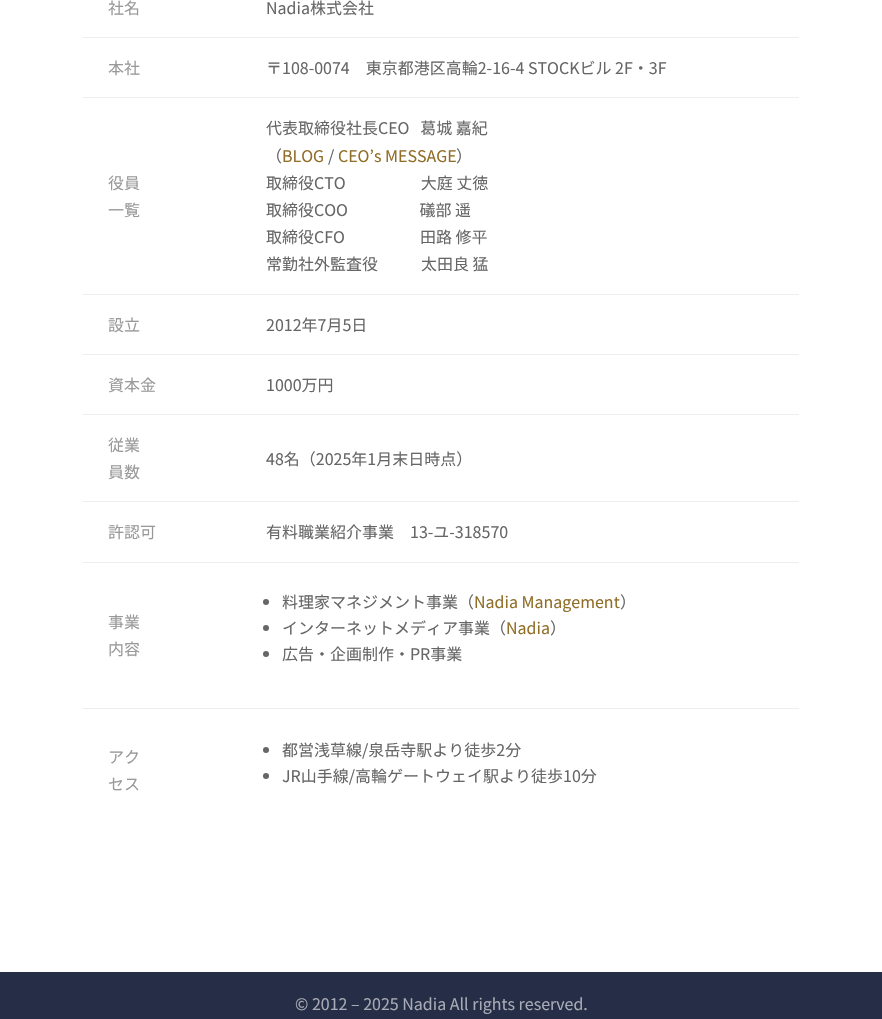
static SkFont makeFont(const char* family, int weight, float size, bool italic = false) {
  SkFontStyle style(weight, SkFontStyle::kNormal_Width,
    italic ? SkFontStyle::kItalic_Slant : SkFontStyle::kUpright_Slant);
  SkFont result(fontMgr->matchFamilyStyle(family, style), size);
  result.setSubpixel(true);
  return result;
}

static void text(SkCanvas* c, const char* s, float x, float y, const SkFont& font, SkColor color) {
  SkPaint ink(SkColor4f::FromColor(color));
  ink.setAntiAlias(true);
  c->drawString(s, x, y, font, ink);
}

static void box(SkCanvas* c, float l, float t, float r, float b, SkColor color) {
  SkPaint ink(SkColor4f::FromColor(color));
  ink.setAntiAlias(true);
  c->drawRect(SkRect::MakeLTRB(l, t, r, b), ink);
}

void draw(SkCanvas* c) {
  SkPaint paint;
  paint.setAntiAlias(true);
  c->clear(0xffffffff);
  SkFont face1 = makeFont("Noto Sans JP", 400, 16);
  text(c, "社名", 108, 14, face1, 0xff999999);
  text(c, "Nadia株式会社", 266, 14, face1, 0xff666666);
  text(c, "本社", 108, 74, face1, 0xff999999);
  box(c, 83, 37, 799, 38, 0xffeeeeee);
  text(c, "〒108-0074　東京都港区高輪2-16-4 STOCKビル 2F・3F", 266, 74, face1, 0xff666666);
  text(c, "役員", 108, 189, face1, 0xff999999);
  text(c, "一覧", 108, 216, face1, 0xff999999);
  box(c, 83, 97, 799, 98, 0xffeeeeee);
  text(c, "代表取締役社長CEO   葛城 嘉紀", 266, 134, face1, 0xff666666);
  text(c, "（", 266, 162, face1, 0xff666666);
  text(c, "BLOG", 282, 162, face1, 0xff916e28);
  text(c, "/", 328, 162, face1, 0xff666666);
  text(c, "CEO’s MESSAGE", 338, 162, face1, 0xff916e28);
  text(c, "）", 456, 162, face1, 0xff666666);
  text(c, "取締役CTO　            　大庭 丈徳", 266, 189, face1, 0xff666666);
  text(c, "取締役COO　           　礒部 遥", 266, 216, face1, 0xff666666);
  text(c, "取締役CFO　            　田路 修平", 266, 243, face1, 0xff666666);
  text(c, "常勤社外監査役            太田良 猛", 266, 270, face1, 0xff666666);
  text(c, "設立", 108, 331, face1, 0xff999999);
  box(c, 83, 294, 799, 295, 0xffeeeeee);
  text(c, "2012年7月5日", 266, 331, face1, 0xff666666);
  text(c, "資本金", 108, 391, face1, 0xff999999);
  box(c, 83, 354, 799, 355, 0xffeeeeee);
  text(c, "1000万円", 266, 391, face1, 0xff666666);
  text(c, "従業", 108, 451, face1, 0xff999999);
  text(c, "員数", 108, 478, face1, 0xff999999);
  box(c, 83, 414, 799, 415, 0xffeeeeee);
  text(c, "48名（2025年1月末日時点）", 266, 465, face1, 0xff666666);
  text(c, "許認可", 108, 538, face1, 0xff999999);
  box(c, 83, 501, 799, 502, 0xffeeeeee);
  text(c, "有料職業紹介事業　13-ユ-318570", 266, 538, face1, 0xff666666);
  text(c, "事業", 108, 628, face1, 0xff999999);
  text(c, "内容", 108, 655, face1, 0xff999999);
  box(c, 83, 562, 799, 563, 0xffeeeeee);
  paint.setColor(0xff666666);
  c->drawCircle(266, 602, 3, paint);
  text(c, "料理家マネジメント事業（", 282, 608, face1, 0xff666666);
  text(c, "Nadia Management", 474, 608, face1, 0xff916e28);
  text(c, "）", 620, 608, face1, 0xff666666);
  c->drawCircle(266, 628, 3, paint);
  text(c, "インターネットメディア事業（", 282, 634, face1, 0xff666666);
  text(c, "Nadia", 506, 634, face1, 0xff916e28);
  text(c, "）", 550, 634, face1, 0xff666666);
  c->drawCircle(266, 654, 3, paint);
  text(c, "広告・企画制作・PR事業", 282, 660, face1, 0xff666666);
  text(c, "アク", 108, 763, face1, 0xff999999);
  text(c, "セス", 108, 790, face1, 0xff999999);
  box(c, 83, 708, 799, 709, 0xffeeeeee);
  c->drawCircle(266, 750, 3, paint);
  text(c, "都営浅草線/泉岳寺駅より徒歩2分", 282, 756, face1, 0xff666666);
  c->drawCircle(266, 776, 3, paint);
  text(c, "JR山手線/高輪ゲートウェイ駅より徒歩10分", 282, 782, face1, 0xff666666);
  box(c, 0, 972, 882, 1019, 0xff252e46);
  text(c, "© 2012 – 2025 Nadia All rights reserved.", 295, 1010, face1, 0xffa8abb5);
}
